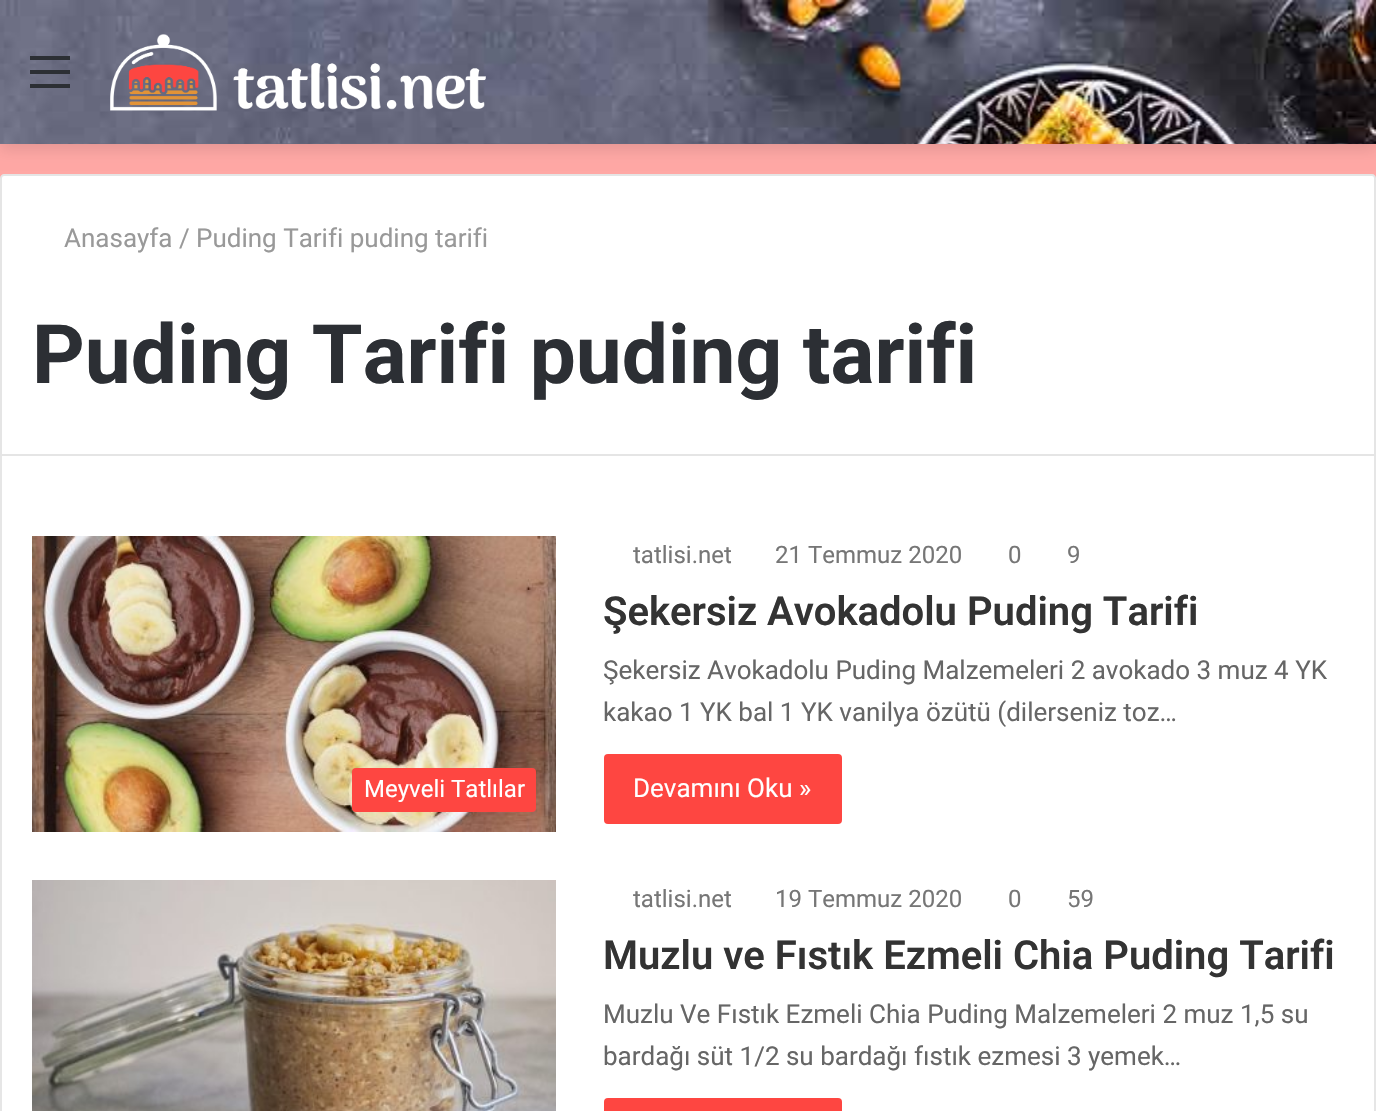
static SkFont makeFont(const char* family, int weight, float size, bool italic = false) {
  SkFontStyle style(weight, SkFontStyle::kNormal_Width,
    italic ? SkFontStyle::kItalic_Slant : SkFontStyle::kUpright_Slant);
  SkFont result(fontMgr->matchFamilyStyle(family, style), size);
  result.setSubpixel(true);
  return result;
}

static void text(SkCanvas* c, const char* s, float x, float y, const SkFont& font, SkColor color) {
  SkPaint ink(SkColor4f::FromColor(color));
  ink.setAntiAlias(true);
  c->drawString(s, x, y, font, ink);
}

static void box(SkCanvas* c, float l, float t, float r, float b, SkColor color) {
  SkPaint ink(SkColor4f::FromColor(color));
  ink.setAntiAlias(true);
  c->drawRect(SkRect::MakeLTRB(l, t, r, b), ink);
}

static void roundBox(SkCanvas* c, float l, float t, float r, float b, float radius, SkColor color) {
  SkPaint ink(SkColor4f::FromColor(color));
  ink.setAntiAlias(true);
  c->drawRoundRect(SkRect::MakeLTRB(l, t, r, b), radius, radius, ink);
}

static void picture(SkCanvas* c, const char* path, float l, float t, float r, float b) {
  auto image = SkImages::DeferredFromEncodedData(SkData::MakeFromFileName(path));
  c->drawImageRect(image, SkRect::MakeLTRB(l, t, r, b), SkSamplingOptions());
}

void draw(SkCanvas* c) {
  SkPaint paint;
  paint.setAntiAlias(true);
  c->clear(0xffffa8a5);
  paint.setColor(0x1a000000);
  paint.setMaskFilter(SkMaskFilter::MakeBlur(kNormal_SkBlurStyle, 7));
  c->drawRect(SkRect::MakeLTRB(0, 6, 1376, 150), paint);
  paint.setMaskFilter(nullptr);
  picture(c, "img_01.png", 0, 0, 1376, 144);
  box(c, 30, 70, 70, 74, 0xff2c2f34);
  box(c, 30, 56, 70, 60, 0xff2c2f34);
  box(c, 30, 84, 70, 88, 0xff2c2f34);
  picture(c, "img_02.png", 110, 34, 486, 111);
  paint.setColor(0xffffffff);
  c->drawPath(SkPathBuilder().moveTo(4, 174).lineTo(1372, 174).cubicTo(1374, 174, 1376, 176, 1376, 178).lineTo(1376, 456).lineTo(0, 456).lineTo(0, 178).cubicTo(0, 176, 2, 174, 4, 174).close().detach(), paint);
  paint.setStyle(SkPaint::kStroke_Style);
  paint.setStrokeWidth(2);
  paint.setColor(0x1a000000);
  c->drawPath(SkPathBuilder().moveTo(4, 175).lineTo(1372, 175).cubicTo(1373.5f, 175, 1375, 176.5f, 1375, 178).lineTo(1375, 455).lineTo(1, 455).lineTo(1, 178).cubicTo(1, 176.5f, 2.5f, 175, 4, 175).close().detach(), paint);
  SkFont face1 = makeFont("Roboto", 400, 26);
  text(c, "Anasayfa", 64, 247, face1, 0xff999999);
  text(c, "/", 179, 247, face1, 0xff999999);
  text(c, "Puding Tarifi puding tarifi", 196, 247, face1, 0xff999999);
  SkFont face2 = makeFont("Roboto", 700, 82);
  text(c, "Puding Tarifi puding tarifi", 32, 383, face2, 0xff2c2f34);
  box(c, 2, 456, 1374, 1111, 0xffffffff);
  box(c, 1374, 456, 1376, 1111, 0xffe6e6e6);
  box(c, 0, 456, 2, 1111, 0xffe6e6e6);
  picture(c, "img_03.png", 32, 536, 556, 832);
  roundBox(c, 352, 768, 536, 812, 4, 0xfffe4641);
  SkFont face3 = makeFont("Roboto", 400, 24);
  text(c, "Meyveli Tatlılar", 364, 797, face3, 0xffffffff);
  text(c, "tatlisi.net", 633, 563, face3, 0xff767676);
  text(c, "21 Temmuz 2020", 775, 563, face3, 0xff767676);
  text(c, "0", 1008, 563, face3, 0xff767676);
  text(c, "9", 1067, 563, face3, 0xff767676);
  SkFont face4 = makeFont("Roboto", 600, 40);
  text(c, "Şekersiz Avokadolu Puding Tarifi", 603, 625, face4, 0xff333333);
  text(c, "Şekersiz Avokadolu Puding Malzemeleri 2 avokado 3 muz 4 YK", 603, 679, face1, 0xff666666);
  text(c, "kakao 1 YK bal 1 YK vanilya özütü (dilerseniz toz…", 603, 721, face1, 0xff666666);
  roundBox(c, 604, 754, 842, 824, 4, 0xfffe4641);
  text(c, "Devamını Oku »", 633, 797, face1, 0xffffffff);
  picture(c, "img_04.png", 32, 880, 556, 1111);
  text(c, "tatlisi.net", 633, 907, face3, 0xff767676);
  text(c, "19 Temmuz 2020", 775, 907, face3, 0xff767676);
  text(c, "0", 1008, 907, face3, 0xff767676);
  text(c, "59", 1067, 907, face3, 0xff767676);
  text(c, "Muzlu ve Fıstık Ezmeli Chia Puding Tarifi", 603, 969, face4, 0xff333333);
  text(c, "Muzlu Ve Fıstık Ezmeli Chia Puding Malzemeleri 2 muz 1,5 su", 603, 1023, face1, 0xff666666);
  text(c, "bardağı süt 1/2 su bardağı fıstık ezmesi 3 yemek…", 603, 1065, face1, 0xff666666);
  roundBox(c, 604, 1098, 842, 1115, 4, 0xfffe4641);
}
